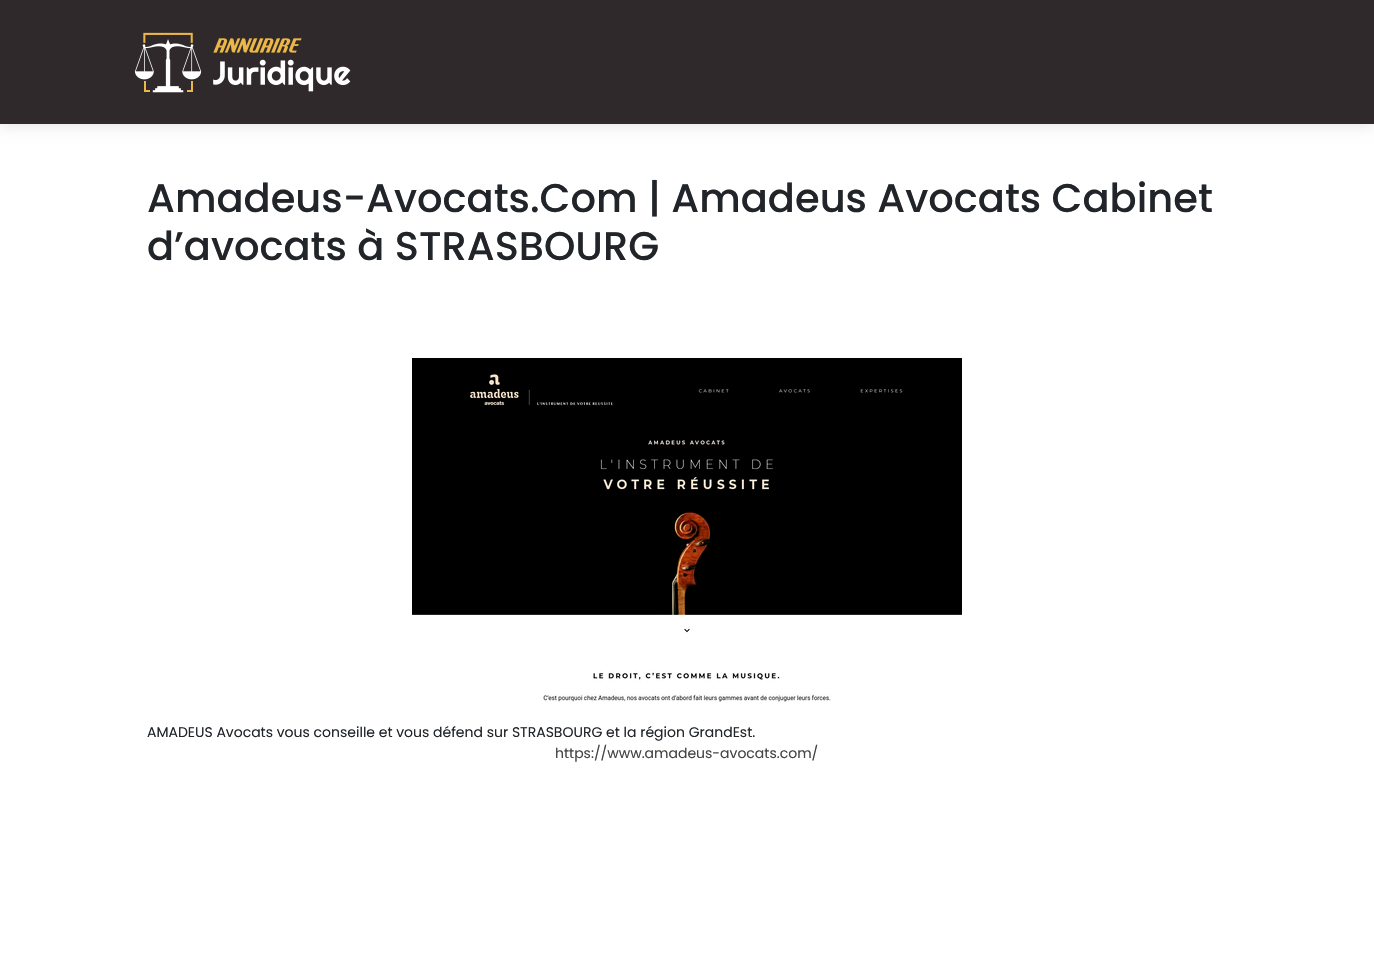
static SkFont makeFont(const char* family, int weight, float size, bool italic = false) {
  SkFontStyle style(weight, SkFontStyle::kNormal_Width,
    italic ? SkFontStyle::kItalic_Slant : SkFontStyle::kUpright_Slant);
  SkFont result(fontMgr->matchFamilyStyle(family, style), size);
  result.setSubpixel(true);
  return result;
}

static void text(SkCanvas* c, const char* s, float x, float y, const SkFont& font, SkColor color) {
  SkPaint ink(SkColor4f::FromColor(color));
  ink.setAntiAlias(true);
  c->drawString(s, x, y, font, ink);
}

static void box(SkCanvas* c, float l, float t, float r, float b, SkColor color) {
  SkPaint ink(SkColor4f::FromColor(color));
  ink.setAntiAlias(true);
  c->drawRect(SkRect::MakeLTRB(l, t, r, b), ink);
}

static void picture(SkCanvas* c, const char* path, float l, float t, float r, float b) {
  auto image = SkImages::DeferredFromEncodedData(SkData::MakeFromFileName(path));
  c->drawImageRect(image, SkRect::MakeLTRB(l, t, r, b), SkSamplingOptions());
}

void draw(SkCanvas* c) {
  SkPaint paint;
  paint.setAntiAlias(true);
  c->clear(0xffffffff);
  paint.setColor(0x1a000000);
  paint.setMaskFilter(SkMaskFilter::MakeBlur(kNormal_SkBlurStyle, 6.5f));
  c->drawRect(SkRect::MakeLTRB(0, 2, 1374, 126), paint);
  paint.setMaskFilter(nullptr);
  box(c, 0, 0, 1374, 124, 0xff30292b);
  picture(c, "img_01.png", 134, 32, 351, 93);
  SkFont face1 = makeFont("Poppins", 500, 40);
  text(c, "Amadeus-Avocats.Com | Amadeus Avocats Cabinet", 147, 212, face1, 0xff212529);
  text(c, "d’avocats à STRASBOURG", 147, 260, face1, 0xff212529);
  picture(c, "img_02.png", 412, 358, 962, 702);
  SkFont face2 = makeFont("Poppins", 400, 14);
  text(c, "AMADEUS Avocats vous conseille et vous défend sur STRASBOURG et la région GrandEst.", 147, 737, face2, 0xff212529);
  text(c, "https://www.amadeus-avocats.com/", 555, 758, face2, 0xff444444);
}
